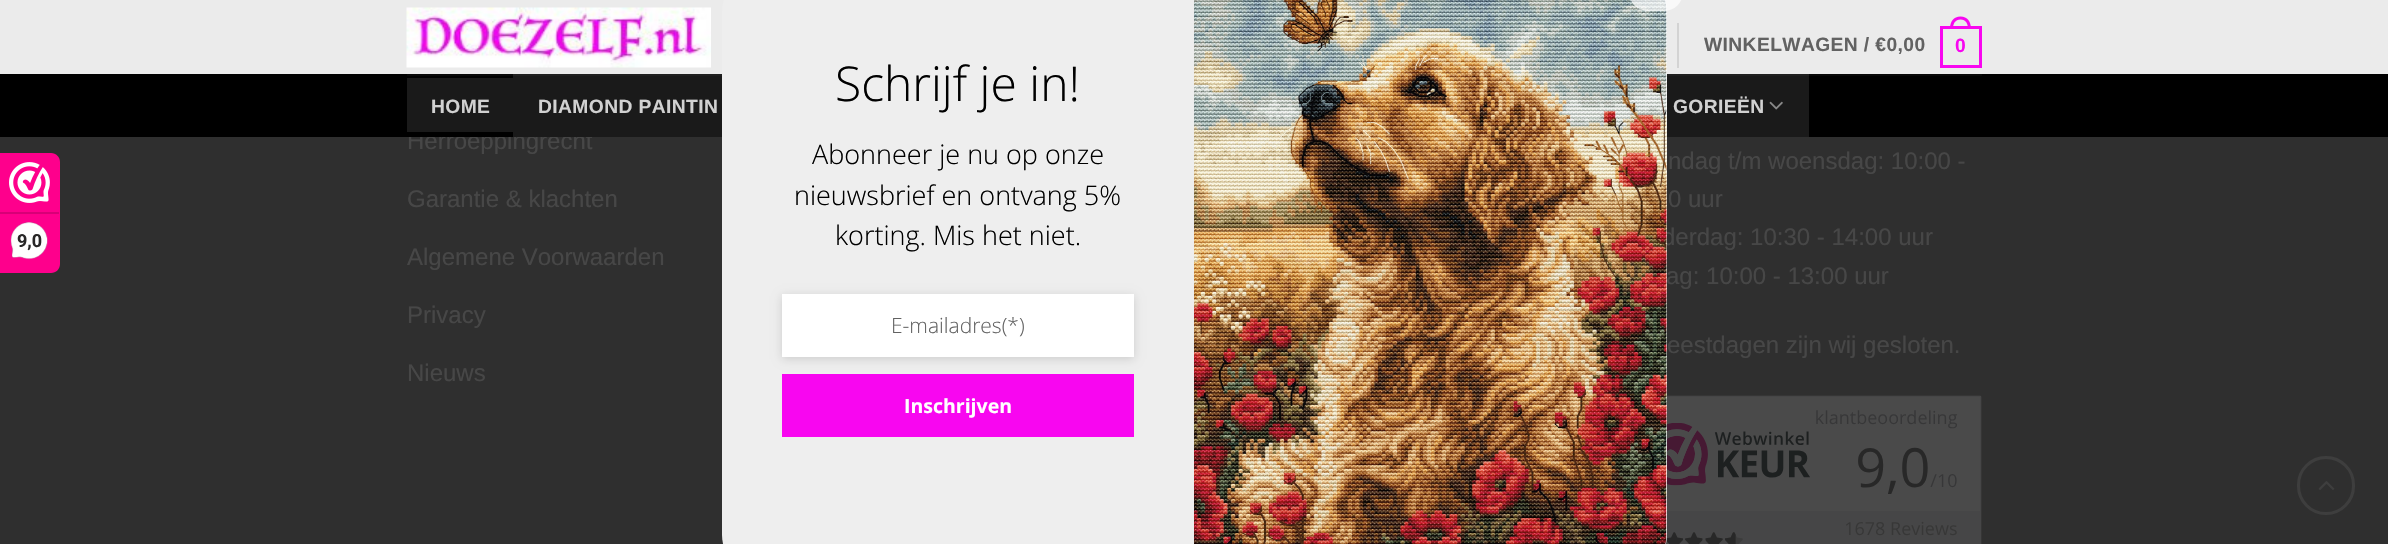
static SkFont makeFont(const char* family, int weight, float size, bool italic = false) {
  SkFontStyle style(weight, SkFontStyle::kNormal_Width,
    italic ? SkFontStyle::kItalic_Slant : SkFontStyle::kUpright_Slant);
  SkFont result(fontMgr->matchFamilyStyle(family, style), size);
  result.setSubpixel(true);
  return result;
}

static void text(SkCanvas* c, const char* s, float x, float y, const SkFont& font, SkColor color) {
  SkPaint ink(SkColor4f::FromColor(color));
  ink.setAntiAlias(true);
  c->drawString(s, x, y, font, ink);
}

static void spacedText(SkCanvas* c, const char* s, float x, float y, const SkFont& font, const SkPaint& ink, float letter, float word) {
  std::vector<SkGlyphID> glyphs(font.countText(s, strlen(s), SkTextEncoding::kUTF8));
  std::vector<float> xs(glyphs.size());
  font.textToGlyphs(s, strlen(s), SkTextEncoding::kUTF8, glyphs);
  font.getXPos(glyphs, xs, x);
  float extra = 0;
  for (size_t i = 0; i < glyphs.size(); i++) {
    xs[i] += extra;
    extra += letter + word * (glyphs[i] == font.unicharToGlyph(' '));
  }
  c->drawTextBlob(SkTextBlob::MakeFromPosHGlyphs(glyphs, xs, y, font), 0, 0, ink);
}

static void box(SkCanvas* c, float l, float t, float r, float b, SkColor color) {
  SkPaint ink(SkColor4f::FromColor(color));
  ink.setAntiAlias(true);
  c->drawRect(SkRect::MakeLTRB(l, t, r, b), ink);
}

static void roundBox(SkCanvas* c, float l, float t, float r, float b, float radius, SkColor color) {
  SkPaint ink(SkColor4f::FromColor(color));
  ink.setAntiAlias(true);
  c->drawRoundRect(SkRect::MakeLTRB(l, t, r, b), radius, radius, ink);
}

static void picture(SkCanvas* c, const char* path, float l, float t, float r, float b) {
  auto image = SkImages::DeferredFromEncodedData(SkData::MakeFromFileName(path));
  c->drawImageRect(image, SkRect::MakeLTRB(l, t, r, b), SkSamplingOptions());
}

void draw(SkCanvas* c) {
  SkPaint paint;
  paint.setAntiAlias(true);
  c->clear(0xff2f2f2f);
  box(c, 0, 0, 2388, 74, 0xe6ffffff);
  picture(c, "img_01.png", 406, 7, 711, 68);
  box(c, 1677, 23, 1679, 68, 0xffd3d3d3);
  SkFont face1 = makeFont("Liberation Sans", 700, 19.25f);
  paint.setColor(0xff626262);
  spacedText(c, "WINKELWAGEN / €0,00", 1704, 51, face1, paint, 0.4f, 0);
  paint.setStyle(SkPaint::kStroke_Style);
  paint.setStrokeWidth(3);
  paint.setColor(0xfff806f0);
  c->drawRect(SkRect::MakeLTRB(1941.5f, 27.5f, 1980.5f, 66.5f), paint);
  paint.setStyle(SkPaint::kFill_Style);
  c->drawPath(SkPathBuilder(SkPathFillType::kEvenOdd).moveTo(1960.5f, 16.5f).cubicTo(1967.5f, 16.5f, 1971, 22, 1971, 28.5f).lineTo(1950, 28.5f).cubicTo(1950, 22, 1953.5f, 16.5f, 1960.5f, 16.5f).close().moveTo(1960.5f, 19.5f).cubicTo(1966, 19.5f, 1968, 24, 1968, 28.5f).lineTo(1953, 28.5f).cubicTo(1953, 24, 1955, 19.5f, 1960.5f, 19.5f).close().detach(), paint);
  spacedText(c, "0", 1955, 52, face1, paint, 0.4f, 0);
  SkFont face2 = makeFont("Liberation Sans", 400, 24);
  text(c, "Herroeppingrecht", 407, 149, face2, 0xff474747);
  box(c, 0, 74, 2388, 137, 0xff000000);
  box(c, 513, 74, 722, 137, 0xff1a1a1a);
  box(c, 1667, 74, 1809, 137, 0xff1a1a1a);
  box(c, 407, 74, 1982, 76, 0x1a4a4a4a);
  box(c, 407, 78, 513, 132, 0xff1a1a1a);
  paint.setColor(0xffd1d1d1);
  spacedText(c, "HOME", 431, 113, face1, paint, 0.4f, 0);
  spacedText(c, "DIAMOND PAINTIN", 538, 113, face1, paint, 0.4f, 0);
  spacedText(c, "GORIEËN", 1673, 113, face1, paint, 0.4f, 0);
  picture(c, "img_02.png", 1769, 101, 1783, 110);
  text(c, "Garantie & klachten", 407, 207, face2, 0xff474747);
  text(c, "Algemene Voorwaarden", 407, 265, face2, 0xff474747);
  text(c, "Privacy", 407, 323, face2, 0xff474747);
  text(c, "Nieuws", 407, 381, face2, 0xff474747);
  text(c, "ndag t/m woensdag: 10:00 -", 1668, 169, face2, 0xff474747);
  text(c, "0 uur", 1668, 207, face2, 0xff474747);
  text(c, "derdag: 10:30 - 14:00 uur", 1662, 245, face2, 0xff474747);
  text(c, "ag: 10:00 - 13:00 uur", 1666, 284, face2, 0xff474747);
  text(c, "eestdagen zijn wij gesloten.", 1667, 353, face2, 0xff474747);
  picture(c, "img_03.png", 1665, 395, 1982, 544);
  paint.setStyle(SkPaint::kStroke_Style);
  paint.setColor(0xff3e3e3e);
  c->drawRoundRect(SkRect::MakeLTRB(2298.5f, 457.5f, 2353.5f, 513.5f), 27.5f, 27.5f, paint);
  picture(c, "img_04.png", 2318, 481, 2335, 490);
  paint.setStyle(SkPaint::kFill_Style);
  paint.setColor(0xfffe008c);
  c->drawPath(SkPathBuilder().moveTo(0, 153).lineTo(51, 153).cubicTo(56, 153, 60, 157, 60, 162).lineTo(60, 264).cubicTo(60, 269, 56, 273, 51, 273).lineTo(0, 273).close().detach(), paint);
  picture(c, "img_05.png", 9, 162, 50, 203);
  box(c, 0, 212, 59, 214, 0xffd80077);
  picture(c, "img_06.png", 10, 222, 48, 260);
  SkFont face3 = makeFont("Roboto", 700, 18);
  text(c, "9,0", 17, 247, face3, 0xff272626);
  paint.setColor(0xffffffff);
  c->drawPath(SkPathBuilder().moveTo(1194, -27).lineTo(1629, -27).cubicTo(1650, -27, 1667, -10, 1667, 11).lineTo(1667, 535).cubicTo(1667, 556, 1650, 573, 1629, 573).lineTo(1194, 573).close().detach(), paint);
  picture(c, "img_07.png", 1194, 0, 1667, 544);
  roundBox(c, 1629, -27, 1683, 11, 27, 0xb3ffffff);
  paint.setColor(0xffeeeeee);
  c->drawPath(SkPathBuilder().moveTo(760, -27).lineTo(1194, -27).lineTo(1194, 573).lineTo(760, 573).cubicTo(739, 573, 722, 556, 722, 535).lineTo(722, 11).cubicTo(722, -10, 739, -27, 760, -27).close().detach(), paint);
  SkFont face4 = makeFont("Open Sans", 300, 48);
  text(c, "Schrijf je in!", 835, 101, face4, 0xff000000);
  SkFont face5 = makeFont("Open Sans", 300, 27);
  text(c, "Abonneer je nu op onze", 812, 164, face5, 0xff000000);
  text(c, "nieuwsbrief en ontvang 5%", 794, 205, face5, 0xff000000);
  text(c, "korting. Mis het niet.", 835, 245, face5, 0xff000000);
  paint.setColor(0x24000000);
  paint.setMaskFilter(SkMaskFilter::MakeBlur(kNormal_SkBlurStyle, 4.5f));
  c->drawRect(SkRect::MakeLTRB(782, 296, 1134, 359), paint);
  paint.setMaskFilter(nullptr);
  box(c, 782, 294, 1134, 357, 0xffffffff);
  SkFont face6 = makeFont("Open Sans", 300, 21);
  text(c, "E-mailadres(*)", 891, 333, face6, 0xff626262);
  box(c, 782, 374, 1134, 437, 0xfff806f0);
  SkFont face7 = makeFont("Open Sans", 700, 19.5f);
  text(c, "Inschrijven", 904, 413, face7, 0xffffffff);
}
